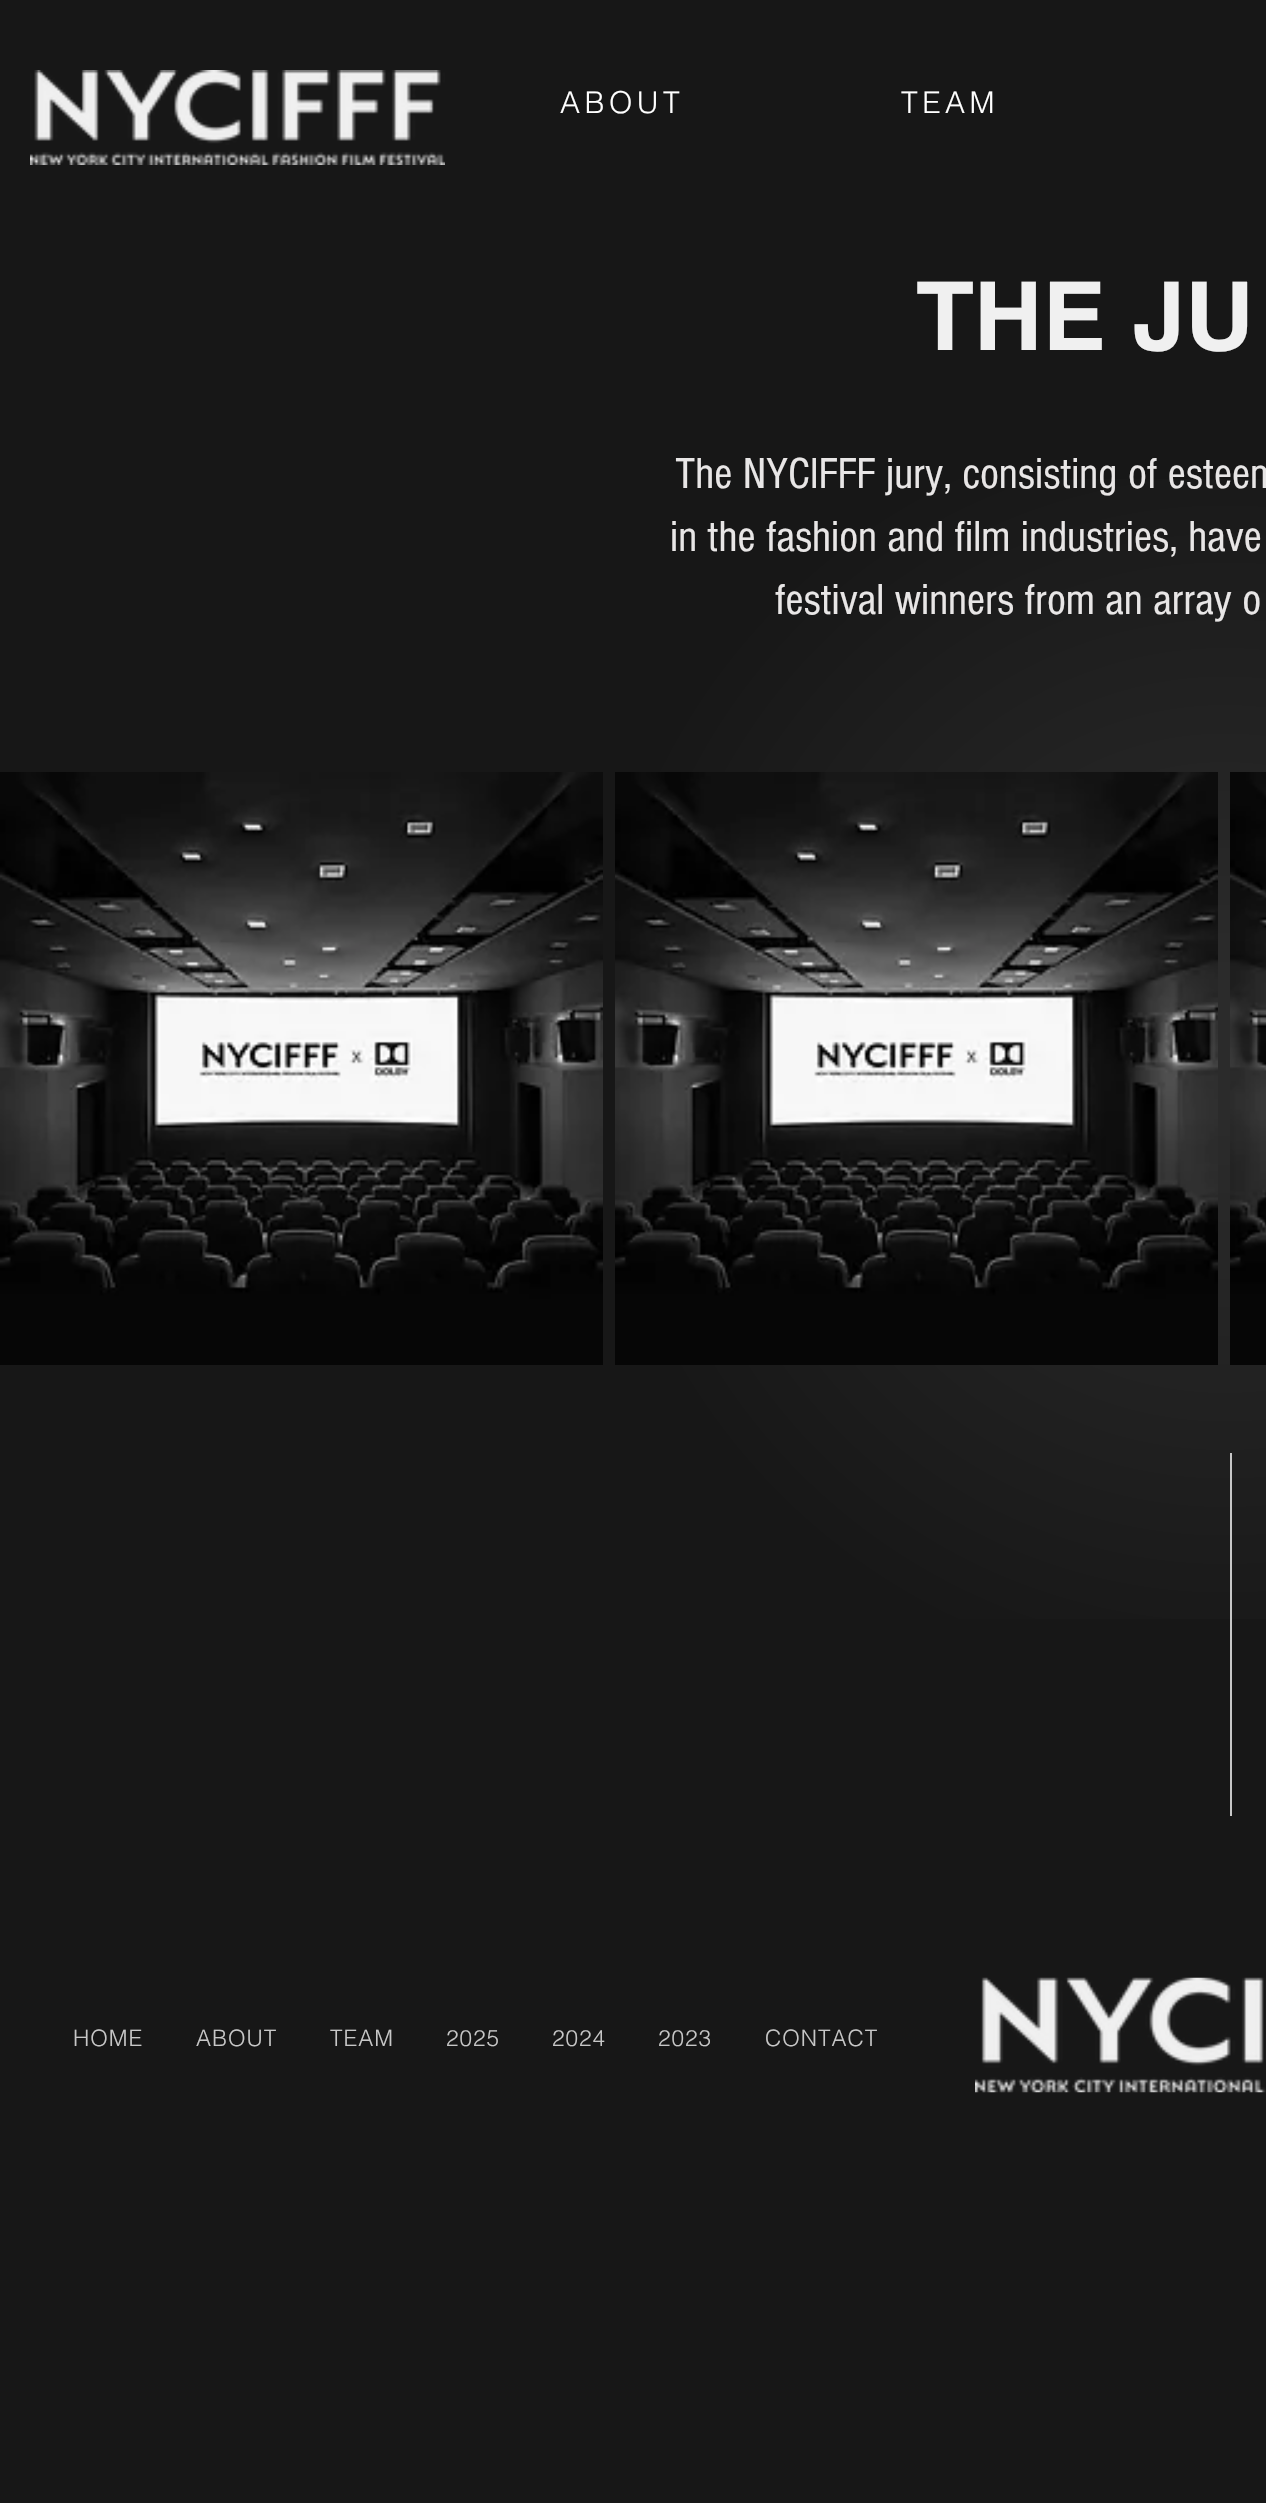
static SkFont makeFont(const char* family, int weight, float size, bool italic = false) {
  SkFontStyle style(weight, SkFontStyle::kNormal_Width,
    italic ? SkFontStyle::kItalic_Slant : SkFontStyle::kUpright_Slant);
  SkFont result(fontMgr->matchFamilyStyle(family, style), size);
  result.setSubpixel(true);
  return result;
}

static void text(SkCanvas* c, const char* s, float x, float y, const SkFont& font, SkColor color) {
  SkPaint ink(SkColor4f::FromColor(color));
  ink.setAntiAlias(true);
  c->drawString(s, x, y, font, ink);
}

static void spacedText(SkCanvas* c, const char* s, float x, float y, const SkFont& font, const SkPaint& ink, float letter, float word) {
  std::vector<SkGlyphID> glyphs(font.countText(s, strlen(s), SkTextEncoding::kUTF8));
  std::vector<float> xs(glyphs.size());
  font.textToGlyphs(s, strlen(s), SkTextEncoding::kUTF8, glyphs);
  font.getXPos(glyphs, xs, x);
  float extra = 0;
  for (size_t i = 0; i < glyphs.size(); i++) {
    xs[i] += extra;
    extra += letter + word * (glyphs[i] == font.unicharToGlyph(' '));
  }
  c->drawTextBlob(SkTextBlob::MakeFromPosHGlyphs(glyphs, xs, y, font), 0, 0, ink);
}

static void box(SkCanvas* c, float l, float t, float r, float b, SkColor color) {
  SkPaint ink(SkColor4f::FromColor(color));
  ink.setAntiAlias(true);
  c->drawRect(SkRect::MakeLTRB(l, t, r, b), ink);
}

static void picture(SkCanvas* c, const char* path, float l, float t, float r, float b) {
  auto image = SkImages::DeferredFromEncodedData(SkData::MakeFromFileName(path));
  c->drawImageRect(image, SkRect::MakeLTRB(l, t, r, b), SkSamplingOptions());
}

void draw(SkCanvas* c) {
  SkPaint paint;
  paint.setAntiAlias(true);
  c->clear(0xff171717);
  picture(c, "img_01.png", 30, 70, 445, 165);
  SkFont face1 = makeFont("helvetica", 300, 30);
  paint.setColor(0xffffffff);
  spacedText(c, "ABOUT", 560, 113, face1, paint, 4.5f, 0);
  spacedText(c, "TEAM", 901, 113, face1, paint, 4.5f, 0);
  SkFont face2 = makeFont("helvetica", 700, 95);
  text(c, "THE JU", 916, 350, face2, 0xfff0f0f0);
  {
    const SkColor colors[] = {0xff2b2b2b, 0xff171717};
    const float stops[] = {0.05f, 0.44f};
    paint.setShader(SkGradientShader::MakeRadial({1225, 1049}, 1462, colors, stops, 2, SkTileMode::kClamp));
    paint.setAlpha(255);
  }
  c->drawRect(SkRect::MakeLTRB(653, 479, 1266, 1619), paint);
  SkFont face3 = makeFont("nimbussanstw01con", 400, 45);
  text(c, "The NYCIFFF jury, consisting of esteem", 675, 488, face3, 0xffe8e6e6);
  text(c, "in the fashion and film industries, have", 670, 551, face3, 0xffe8e6e6);
  text(c, "festival winners from an array o", 775, 614, face3, 0xffe8e6e6);
  picture(c, "img_02.png", 0, 772, 603, 1365);
  picture(c, "img_03.png", 615, 772, 1218, 1365);
  picture(c, "img_04.png", 1230, 772, 1266, 1365);
  box(c, 1230, 1453, 1232, 1816, 0xffc7c7c7);
  SkFont face4 = makeFont("helvetica", 300, 22.5f);
  paint.setShader(nullptr);
  paint.setColor(0xffc7c7c7);
  spacedText(c, "HOME", 73, 2046, face4, paint, 1, 0);
  spacedText(c, "ABOUT", 196, 2046, face4, paint, 1, 0);
  spacedText(c, "TEAM", 330, 2046, face4, paint, 1, 0);
  spacedText(c, "2025", 446, 2046, face4, paint, 1, 0);
  spacedText(c, "2024", 552, 2046, face4, paint, 1, 0);
  spacedText(c, "2023", 658, 2046, face4, paint, 1, 0);
  spacedText(c, "CONTACT", 765, 2046, face4, paint, 1, 0);
  picture(c, "img_05.png", 975, 1977, 1266, 2093);
}
